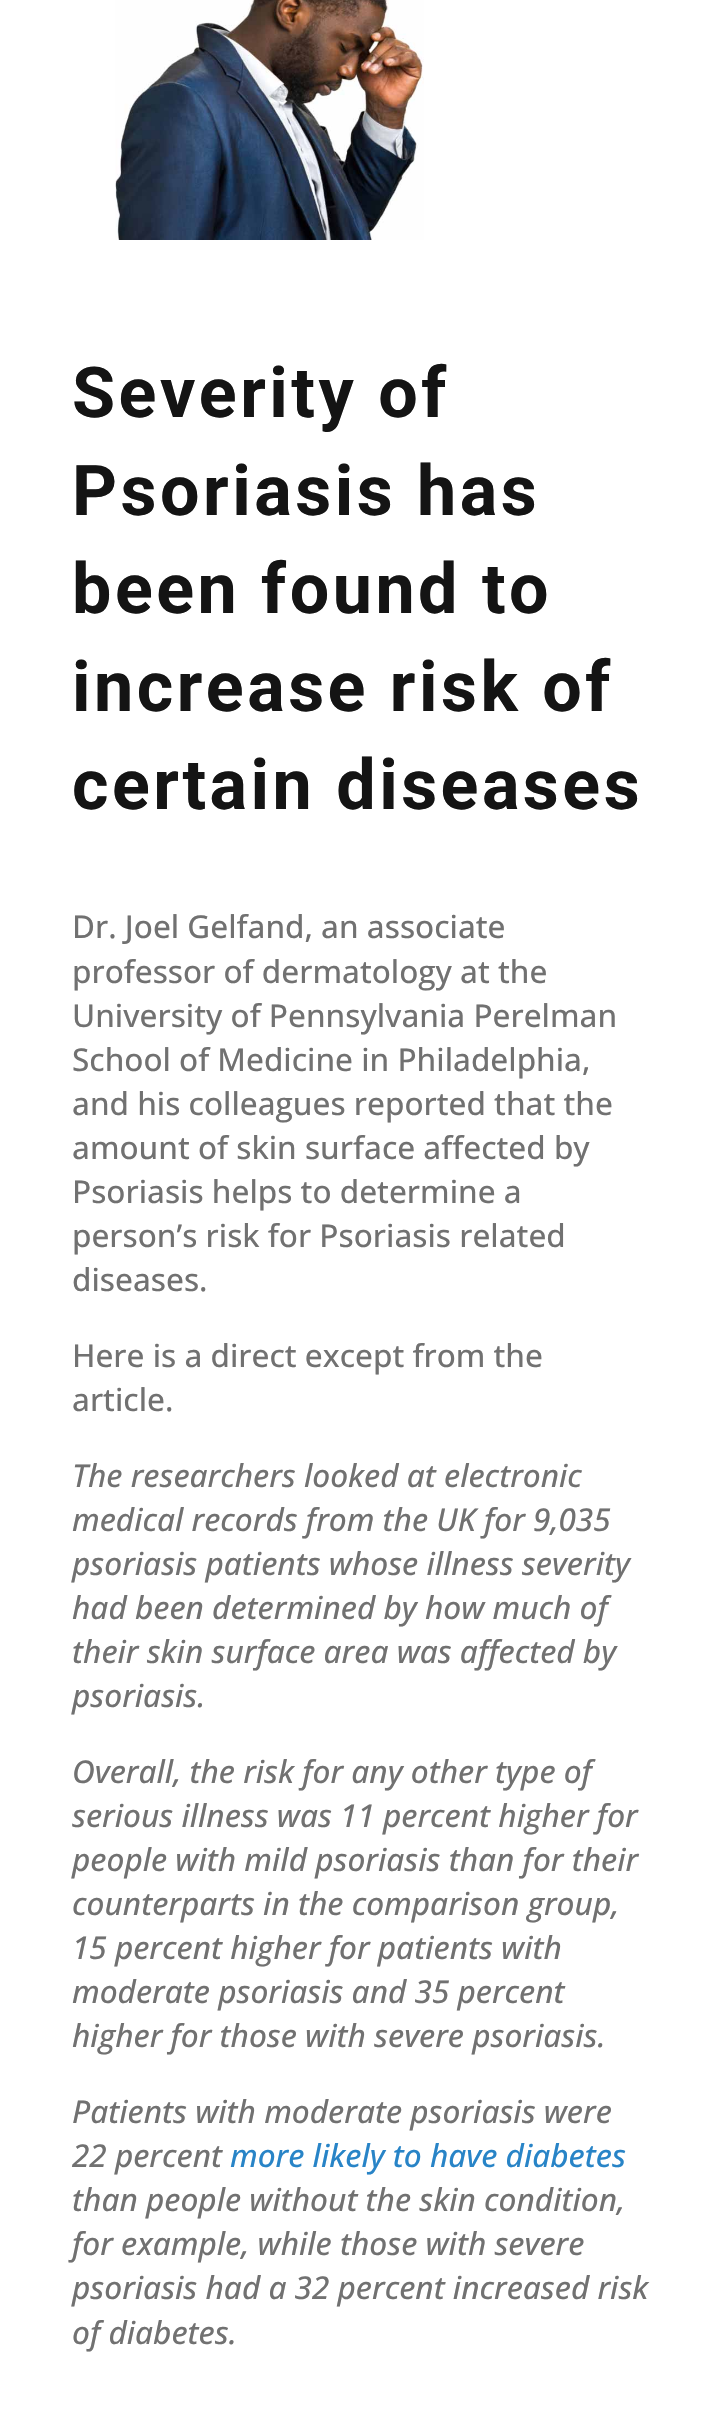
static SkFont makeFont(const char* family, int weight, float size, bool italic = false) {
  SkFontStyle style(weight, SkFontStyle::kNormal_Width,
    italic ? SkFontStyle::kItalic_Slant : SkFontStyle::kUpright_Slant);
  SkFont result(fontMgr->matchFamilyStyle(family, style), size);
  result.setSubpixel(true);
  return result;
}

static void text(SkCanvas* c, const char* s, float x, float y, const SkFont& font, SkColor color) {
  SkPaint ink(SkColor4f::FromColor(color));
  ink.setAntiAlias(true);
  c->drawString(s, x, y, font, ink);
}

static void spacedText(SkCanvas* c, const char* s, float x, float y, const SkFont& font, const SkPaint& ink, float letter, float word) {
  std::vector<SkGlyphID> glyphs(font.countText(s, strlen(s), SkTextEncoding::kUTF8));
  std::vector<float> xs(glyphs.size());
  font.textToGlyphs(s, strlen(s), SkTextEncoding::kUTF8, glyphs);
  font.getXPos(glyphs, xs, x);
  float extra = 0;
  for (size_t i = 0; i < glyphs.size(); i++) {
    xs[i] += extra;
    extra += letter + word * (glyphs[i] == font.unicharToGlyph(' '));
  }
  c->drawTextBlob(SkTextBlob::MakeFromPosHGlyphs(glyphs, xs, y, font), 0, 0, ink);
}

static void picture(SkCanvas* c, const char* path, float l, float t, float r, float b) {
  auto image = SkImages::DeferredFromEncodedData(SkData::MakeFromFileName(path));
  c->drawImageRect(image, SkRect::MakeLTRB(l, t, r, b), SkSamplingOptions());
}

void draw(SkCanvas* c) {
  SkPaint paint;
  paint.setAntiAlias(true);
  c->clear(0xffffffff);
  picture(c, "img_01.png", 115, 0, 424, 240);
  SkFont face1 = makeFont("Roboto", 700, 70);
  paint.setColor(0xff141414);
  spacedText(c, "Severity of", 72, 417, face1, paint, 3.5f, 0);
  spacedText(c, "Psoriasis has", 72, 515, face1, paint, 3.5f, 0);
  spacedText(c, "been found to", 72, 613, face1, paint, 3.5f, 0);
  spacedText(c, "increase risk of", 72, 711, face1, paint, 3.5f, 0);
  spacedText(c, "certain diseases", 72, 809, face1, paint, 3.5f, 0);
  SkFont face2 = makeFont("Open Sans", 500, 31.5f);
  text(c, "Dr. Joel Gelfand, an associate", 72, 938, face2, 0xff717171);
  text(c, "professor of dermatology at the", 72, 983, face2, 0xff717171);
  text(c, "University of Pennsylvania Perelman", 72, 1027, face2, 0xff717171);
  text(c, "School of Medicine in Philadelphia,", 72, 1071, face2, 0xff717171);
  text(c, "and his colleagues reported that the", 72, 1115, face2, 0xff717171);
  text(c, "amount of skin surface affected by", 72, 1159, face2, 0xff717171);
  text(c, "Psoriasis helps to determine a", 72, 1203, face2, 0xff717171);
  text(c, "person’s risk for Psoriasis related", 72, 1247, face2, 0xff717171);
  text(c, "diseases.", 72, 1291, face2, 0xff717171);
  text(c, "Here is a direct except from the", 72, 1367, face2, 0xff717171);
  text(c, "article.", 72, 1411, face2, 0xff717171);
  SkFont face3 = makeFont("Open Sans", 500, 31.5f, true);
  text(c, "The researchers looked at electronic", 72, 1487, face3, 0xff717171);
  text(c, "medical records from the UK for 9,035", 72, 1531, face3, 0xff717171);
  text(c, "psoriasis patients whose illness severity", 72, 1575, face3, 0xff717171);
  text(c, "had been determined by how much of", 72, 1619, face3, 0xff717171);
  text(c, "their skin surface area was affected by", 72, 1663, face3, 0xff717171);
  text(c, "psoriasis.", 72, 1707, face3, 0xff717171);
  text(c, "Overall, the risk for any other type of", 72, 1783, face3, 0xff717171);
  text(c, "serious illness was 11 percent higher for", 72, 1827, face3, 0xff717171);
  text(c, "people with mild psoriasis than for their", 72, 1871, face3, 0xff717171);
  text(c, "counterparts in the comparison group,", 72, 1915, face3, 0xff717171);
  text(c, "15 percent higher for patients with", 72, 1959, face3, 0xff717171);
  text(c, "moderate psoriasis and 35 percent", 72, 2003, face3, 0xff717171);
  text(c, "higher for those with severe psoriasis.", 72, 2047, face3, 0xff717171);
  text(c, "Patients with moderate psoriasis were", 72, 2123, face3, 0xff717171);
  text(c, "22 percent", 72, 2167, face3, 0xff717171);
  text(c, "more likely to have diabetes", 230, 2167, face3, 0xff2884c7);
  text(c, "than people without the skin condition,", 72, 2211, face3, 0xff717171);
  text(c, "for example, while those with severe", 72, 2255, face3, 0xff717171);
  text(c, "psoriasis had a 32 percent increased risk", 72, 2299, face3, 0xff717171);
  text(c, "of diabetes.", 72, 2344, face3, 0xff717171);
}
